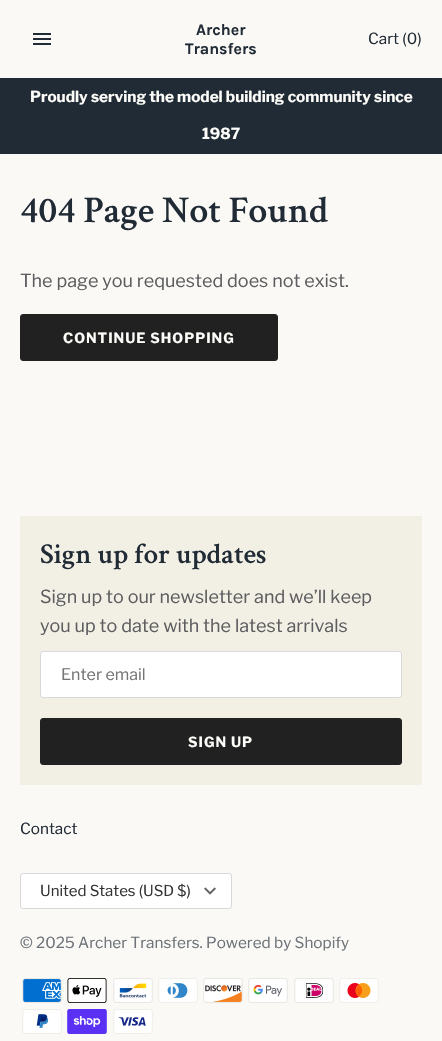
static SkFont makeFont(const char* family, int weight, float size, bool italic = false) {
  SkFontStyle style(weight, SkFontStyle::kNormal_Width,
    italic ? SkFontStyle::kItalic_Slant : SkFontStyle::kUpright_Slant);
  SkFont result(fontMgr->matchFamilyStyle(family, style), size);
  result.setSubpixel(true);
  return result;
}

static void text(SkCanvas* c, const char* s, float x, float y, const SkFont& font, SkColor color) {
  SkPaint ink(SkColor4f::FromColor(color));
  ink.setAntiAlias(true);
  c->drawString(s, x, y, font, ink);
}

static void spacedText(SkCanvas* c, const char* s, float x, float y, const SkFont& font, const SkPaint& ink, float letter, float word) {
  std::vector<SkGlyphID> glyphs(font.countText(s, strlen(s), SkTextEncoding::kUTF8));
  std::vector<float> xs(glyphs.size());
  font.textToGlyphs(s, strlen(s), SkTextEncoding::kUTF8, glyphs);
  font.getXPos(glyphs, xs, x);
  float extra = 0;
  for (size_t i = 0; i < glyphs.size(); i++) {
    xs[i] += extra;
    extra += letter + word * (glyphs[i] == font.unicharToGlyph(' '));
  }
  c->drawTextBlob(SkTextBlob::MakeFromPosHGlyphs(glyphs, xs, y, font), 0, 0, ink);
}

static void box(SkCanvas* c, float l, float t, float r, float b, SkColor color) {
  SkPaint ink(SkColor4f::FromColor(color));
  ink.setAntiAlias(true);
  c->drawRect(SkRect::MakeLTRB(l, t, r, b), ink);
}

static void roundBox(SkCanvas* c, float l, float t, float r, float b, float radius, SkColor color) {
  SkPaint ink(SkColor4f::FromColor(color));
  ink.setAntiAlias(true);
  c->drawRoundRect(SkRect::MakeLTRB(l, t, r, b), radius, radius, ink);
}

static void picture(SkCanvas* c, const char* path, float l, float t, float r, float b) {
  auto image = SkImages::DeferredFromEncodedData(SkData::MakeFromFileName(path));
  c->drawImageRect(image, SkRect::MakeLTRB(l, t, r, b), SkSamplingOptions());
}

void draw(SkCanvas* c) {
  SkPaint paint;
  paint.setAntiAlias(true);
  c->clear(0xfffaf9f5);
  picture(c, "img_01.png", 33, 33, 51, 45);
  SkFont face1 = makeFont("Karla", 700, 16);
  text(c, "Archer", 196, 35, face1, 0xff212b36);
  text(c, "Transfers", 185, 54, face1, 0xff212b36);
  SkFont face2 = makeFont("Libre Franklin", 400, 15.3f);
  text(c, "Cart (0)", 368, 44, face2, 0xff212b36);
  box(c, 0, 78, 442, 154, 0xff212b36);
  SkFont face3 = makeFont("Libre Franklin", 700, 15.3f);
  text(c, "Proudly serving the model building community since", 30, 102, face3, 0xfffdfdf9);
  text(c, "1987", 202, 139, face3, 0xfffdfdf9);
  SkFont face4 = makeFont("Crimson Text", 600, 37.75f);
  text(c, "404 Page Not Found", 20, 222, face4, 0xff212b36);
  SkFont face5 = makeFont("Libre Franklin", 400, 18);
  text(c, "The page you requested does not exist.", 20, 287, face5, 0xff5d5d60);
  paint.setColor(0xff212121);
  c->drawRoundRect(SkRect::MakeLTRB(20.5f, 314.5f, 277.5f, 360.5f), 2.5f, 2.5f, paint);
  paint.setStyle(SkPaint::kStroke_Style);
  paint.setStrokeWidth(1);
  c->drawRoundRect(SkRect::MakeLTRB(20.5f, 314.5f, 277.5f, 360.5f), 2.5f, 2.5f, paint);
  SkFont face6 = makeFont("Libre Franklin", 700, 14);
  paint.setStyle(SkPaint::kFill_Style);
  paint.setColor(0xfffdfdf9);
  spacedText(c, "CONTINUE SHOPPING", 63, 343, face6, paint, 1, 0);
  box(c, 20, 516, 422, 785, 0xfff2efe4);
  SkFont face7 = makeFont("Crimson Text", 600, 28.75f);
  text(c, "Sign up for updates", 40, 563, face7, 0xff212b36);
  text(c, "Sign up to our newsletter and we’ll keep", 40, 603, face5, 0xff5d5d60);
  text(c, "you up to date with the latest arrivals", 40, 632, face5, 0xff5d5d60);
  roundBox(c, 40, 651, 402, 698, 3, 0xffffffff);
  paint.setStyle(SkPaint::kStroke_Style);
  paint.setColor(0x26000000);
  c->drawRoundRect(SkRect::MakeLTRB(40.5f, 651.5f, 401.5f, 697.5f), 2.5f, 2.5f, paint);
  SkFont face8 = makeFont("Libre Franklin", 400, 16);
  text(c, "Enter email", 61, 680, face8, 0xff757575);
  paint.setStyle(SkPaint::kFill_Style);
  paint.setColor(0xff212121);
  c->drawRoundRect(SkRect::MakeLTRB(40.5f, 718.5f, 401.5f, 764.5f), 2.5f, 2.5f, paint);
  paint.setStyle(SkPaint::kStroke_Style);
  c->drawRoundRect(SkRect::MakeLTRB(40.5f, 718.5f, 401.5f, 764.5f), 2.5f, 2.5f, paint);
  paint.setStyle(SkPaint::kFill_Style);
  paint.setColor(0xfffdfdf9);
  spacedText(c, "SIGN UP", 188, 747, face6, paint, 1, 0);
  text(c, "Contact", 20, 834, face2, 0xff212b36);
  roundBox(c, 20, 873, 232, 909, 3, 0xffffffff);
  paint.setStyle(SkPaint::kStroke_Style);
  paint.setColor(0x26000000);
  c->drawRoundRect(SkRect::MakeLTRB(20.5f, 873.5f, 231.5f, 908.5f), 2.5f, 2.5f, paint);
  SkFont face9 = makeFont("Libre Franklin", 400, 15);
  text(c, "United States (USD $)", 40, 896, face9, 0xff333333);
  picture(c, "img_02.png", 204, 887, 216, 895);
  text(c, "© 2025 Archer Transfers. Powered by Shopify", 20, 948, face2, 0xff6d7379);
  picture(c, "img_03.png", 22, 978, 62, 1003);
  picture(c, "img_04.png", 67, 978, 107, 1003);
  picture(c, "img_05.png", 113, 978, 153, 1003);
  picture(c, "img_06.png", 158, 978, 198, 1003);
  picture(c, "img_07.png", 203, 978, 243, 1003);
  picture(c, "img_08.png", 248, 978, 288, 1003);
  picture(c, "img_09.png", 294, 978, 334, 1003);
  picture(c, "img_10.png", 339, 978, 379, 1003);
  picture(c, "img_11.png", 22, 1009, 62, 1034);
  picture(c, "img_12.png", 67, 1009, 107, 1034);
  picture(c, "img_13.png", 113, 1009, 153, 1034);
}
